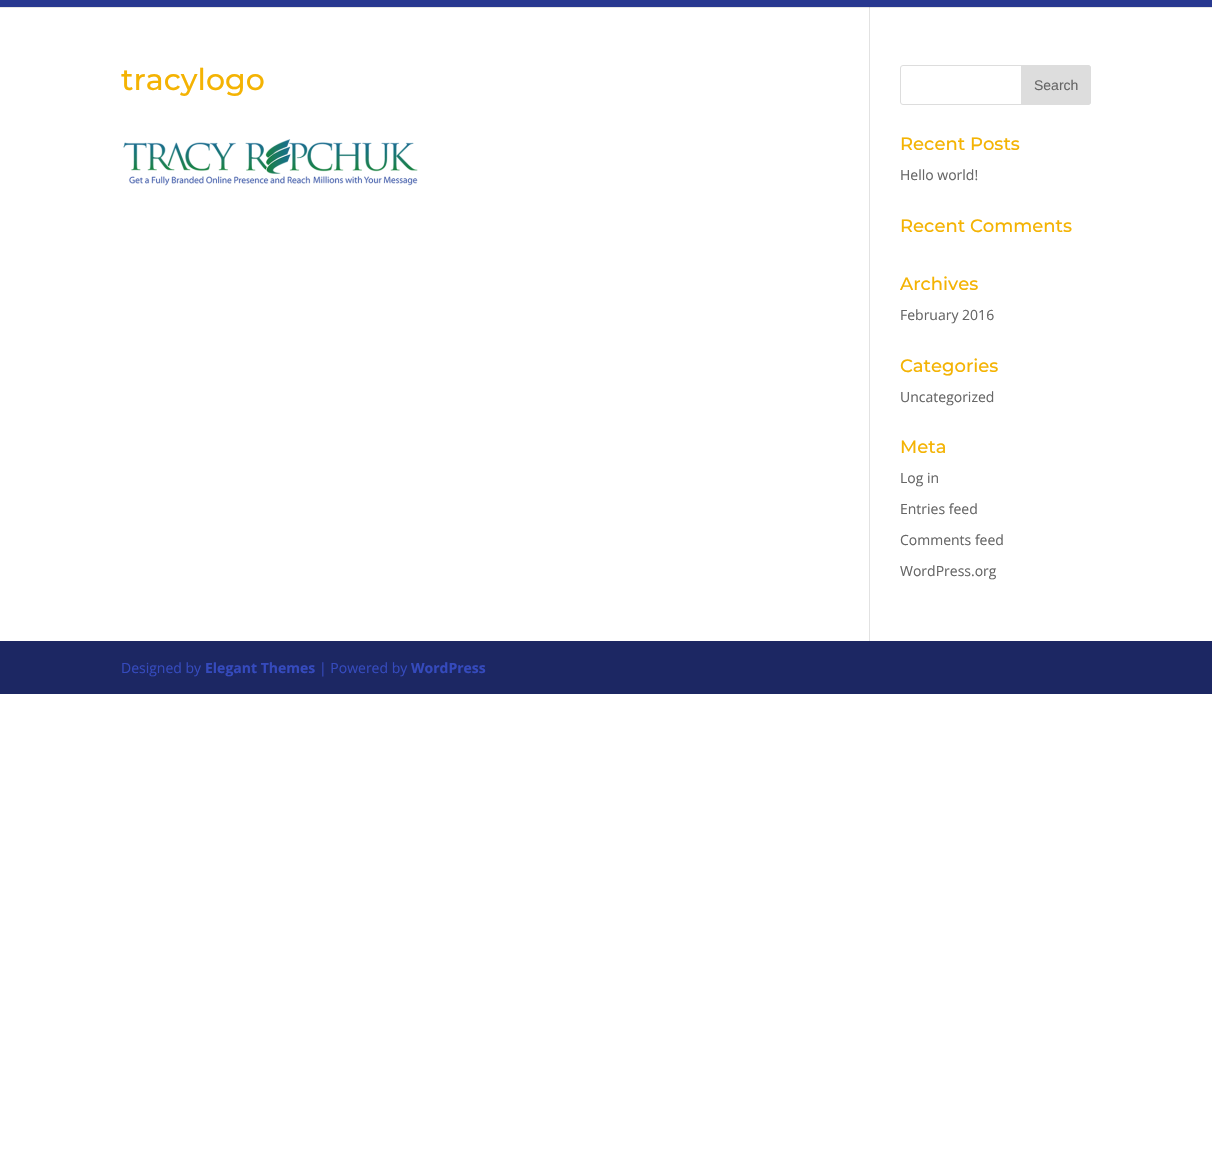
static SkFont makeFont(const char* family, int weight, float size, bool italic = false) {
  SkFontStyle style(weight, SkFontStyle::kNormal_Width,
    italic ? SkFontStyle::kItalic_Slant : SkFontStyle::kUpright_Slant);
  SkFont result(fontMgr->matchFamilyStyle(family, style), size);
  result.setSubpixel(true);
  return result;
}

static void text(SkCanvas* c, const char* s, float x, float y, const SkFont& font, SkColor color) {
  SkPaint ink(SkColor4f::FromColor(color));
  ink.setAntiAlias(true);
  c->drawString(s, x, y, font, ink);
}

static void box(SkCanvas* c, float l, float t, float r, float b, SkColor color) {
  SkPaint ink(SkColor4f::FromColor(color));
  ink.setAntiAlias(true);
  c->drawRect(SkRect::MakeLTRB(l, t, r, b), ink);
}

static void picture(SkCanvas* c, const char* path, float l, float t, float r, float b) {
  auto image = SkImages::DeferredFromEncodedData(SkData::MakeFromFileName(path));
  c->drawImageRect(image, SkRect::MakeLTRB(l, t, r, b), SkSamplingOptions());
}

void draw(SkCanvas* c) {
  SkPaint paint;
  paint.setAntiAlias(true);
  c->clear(0xffffffff);
  box(c, 0, 7, 1212, 8, 0xffe6e6e6);
  box(c, 0, 0, 1212, 7, 0xff283890);
  box(c, 869, 7, 870, 641, 0xffe2e2e2);
  box(c, 869, 7, 870, 8, 0xffcbcbcb);
  SkFont face1 = makeFont("Montserrat", 500, 30);
  text(c, "tracylogo", 121, 90, face1, 0xfff4b303);
  picture(c, "img_01.png", 123, 139, 418, 186);
  paint.setStyle(SkPaint::kStroke_Style);
  paint.setStrokeWidth(1);
  paint.setColor(0xffdddddd);
  c->drawRoundRect(SkRect::MakeLTRB(900.5f, 65.5f, 1090.5f, 104.5f), 2.5f, 2.5f, paint);
  paint.setStyle(SkPaint::kFill_Style);
  c->drawPath(SkPathBuilder().moveTo(1021.5f, 65.5f).lineTo(1088, 65.5f).cubicTo(1089.5f, 65.5f, 1090.5f, 66.5f, 1090.5f, 68).lineTo(1090.5f, 102).cubicTo(1090.5f, 103.5f, 1089.5f, 104.5f, 1088, 104.5f).lineTo(1021.5f, 104.5f).close().detach(), paint);
  paint.setStyle(SkPaint::kStroke_Style);
  c->drawPath(SkPathBuilder().moveTo(1021.5f, 65.5f).lineTo(1088, 65.5f).cubicTo(1089.5f, 65.5f, 1090.5f, 66.5f, 1090.5f, 68).lineTo(1090.5f, 102).cubicTo(1090.5f, 103.5f, 1089.5f, 104.5f, 1088, 104.5f).lineTo(1021.5f, 104.5f).close().detach(), paint);
  SkFont face2 = makeFont("Liberation Sans", 400, 14);
  text(c, "Search", 1034, 90, face2, 0xff666666);
  SkFont face3 = makeFont("Montserrat", 500, 18);
  text(c, "Recent Posts", 900, 150, face3, 0xfff4b303);
  SkFont face4 = makeFont("Open Sans", 400, 14);
  text(c, "Hello world!", 900, 180, face4, 0xff666666);
  text(c, "Recent Comments", 900, 232, face3, 0xfff4b303);
  text(c, "Archives", 900, 290, face3, 0xfff4b303);
  text(c, "February 2016", 900, 320, face4, 0xff666666);
  text(c, "Categories", 900, 372, face3, 0xfff4b303);
  text(c, "Uncategorized", 900, 402, face4, 0xff666666);
  text(c, "Meta", 900, 453, face3, 0xfff4b303);
  text(c, "Log in", 900, 483, face4, 0xff666666);
  text(c, "Entries feed", 900, 514, face4, 0xff666666);
  text(c, "Comments feed", 900, 545, face4, 0xff666666);
  text(c, "WordPress.org", 900, 576, face4, 0xff666666);
  box(c, 0, 641, 1212, 694, 0xff1c2763);
  text(c, "Designed by", 121, 673, face4, 0xff354abd);
  SkFont face5 = makeFont("Open Sans", 700, 14);
  text(c, "Elegant Themes", 205, 673, face5, 0xff354abd);
  text(c, "| Powered by", 319, 673, face4, 0xff354abd);
  text(c, "WordPress", 411, 673, face5, 0xff354abd);
}
